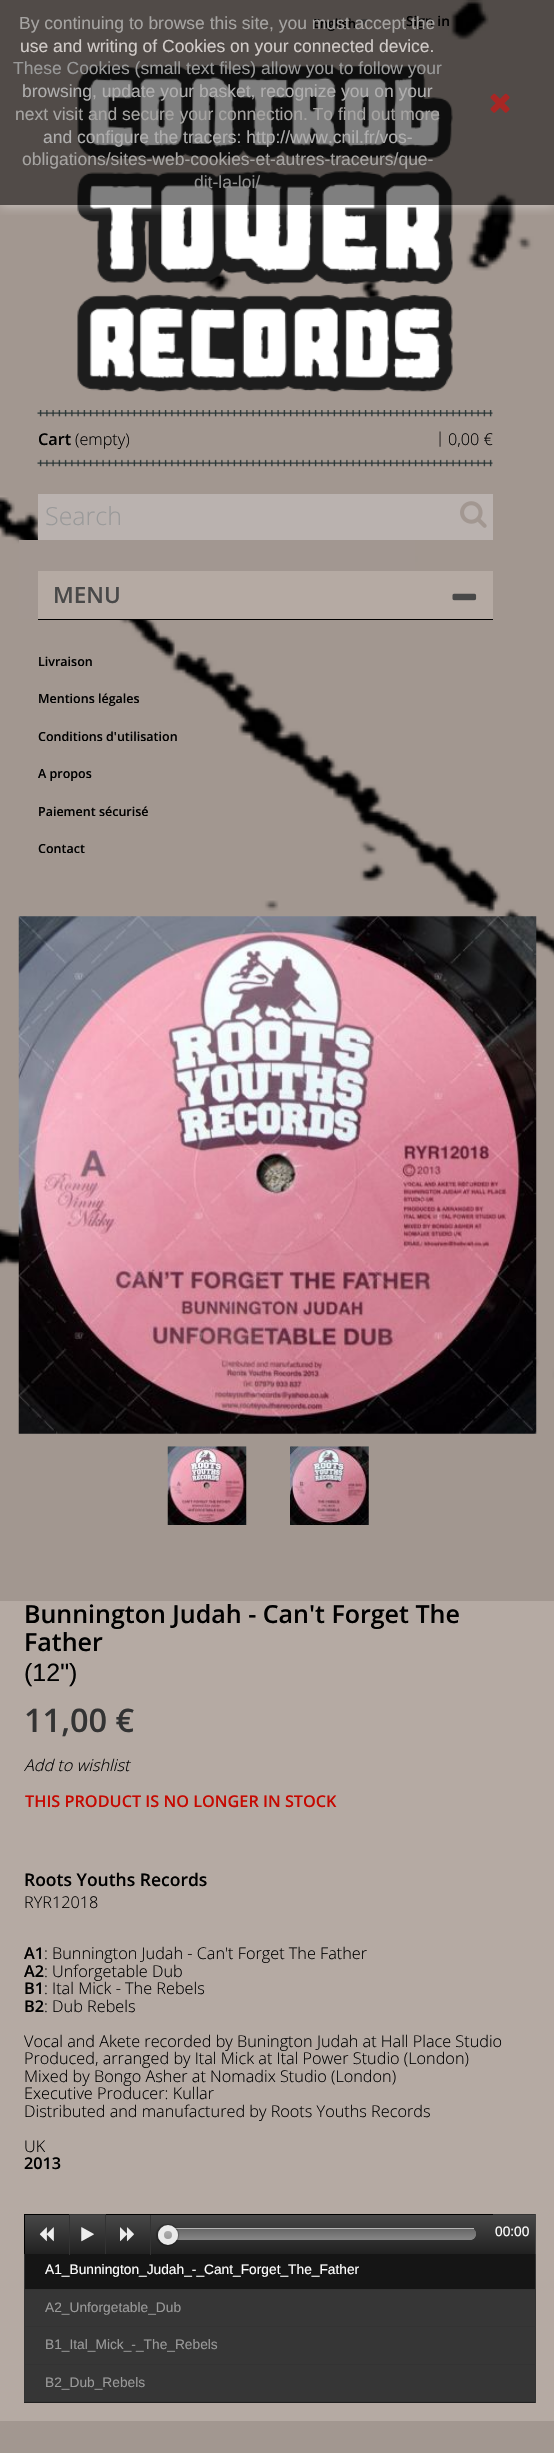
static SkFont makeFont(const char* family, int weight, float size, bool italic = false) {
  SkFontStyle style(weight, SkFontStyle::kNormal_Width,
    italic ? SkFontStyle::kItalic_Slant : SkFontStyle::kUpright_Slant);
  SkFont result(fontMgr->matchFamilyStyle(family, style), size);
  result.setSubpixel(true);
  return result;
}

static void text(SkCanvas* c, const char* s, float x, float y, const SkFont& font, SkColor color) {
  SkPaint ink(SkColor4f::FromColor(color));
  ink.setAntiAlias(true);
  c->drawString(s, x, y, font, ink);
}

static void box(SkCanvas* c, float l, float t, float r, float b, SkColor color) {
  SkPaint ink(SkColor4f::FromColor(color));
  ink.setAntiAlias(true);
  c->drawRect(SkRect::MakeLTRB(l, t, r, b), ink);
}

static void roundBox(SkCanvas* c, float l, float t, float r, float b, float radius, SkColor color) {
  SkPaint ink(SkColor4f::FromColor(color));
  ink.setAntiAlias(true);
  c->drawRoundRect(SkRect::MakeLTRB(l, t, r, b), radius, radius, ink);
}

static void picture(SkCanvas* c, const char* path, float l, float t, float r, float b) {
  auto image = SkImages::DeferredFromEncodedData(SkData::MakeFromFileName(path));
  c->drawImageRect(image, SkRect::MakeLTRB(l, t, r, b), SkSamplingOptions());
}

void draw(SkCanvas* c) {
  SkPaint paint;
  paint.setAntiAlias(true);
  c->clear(0xffffffff);
  picture(c, "img_01.png", 0, 0, 554, 2453);
  SkFont face1 = makeFont("Open Sans", 600, 12.5f);
  text(c, "English", 313, 28, face1, 0xff000000);
  picture(c, "img_02.png", 358, 19, 368, 25);
  SkFont face2 = makeFont("Open Sans", 600, 13.75f);
  text(c, "Sign in", 406, 26, face2, 0xff000000);
  picture(c, "img_03.png", 77, 65, 453, 392);
  picture(c, "img_04.png", 37, 410, 493, 467);
  SkFont face3 = makeFont("Open Sans", 600, 16.25f);
  text(c, "Cart", 38, 445, face3, 0xff000000);
  SkFont face4 = makeFont("Open Sans", 300, 16.25f);
  text(c, "(empty)", 75, 445, face4, 0xff000000);
  SkFont face5 = makeFont("Open Sans", 300, 15);
  text(c, "|", 436, 443, face5, 0xff000000);
  text(c, "0,00 €", 448, 445, face4, 0xff000000);
  box(c, 38, 494, 493, 540, 0xffbab2af);
  SkFont face6 = makeFont("Open Sans", 300, 25);
  text(c, "Search", 45, 525, face6, 0xff999999);
  picture(c, "img_05.png", 460, 501, 487, 528);
  box(c, 19, 540, 415, 619, 0xffa29791);
  box(c, 38, 571, 493, 619, 0xffb5aaa3);
  SkFont face7 = makeFont("Open Sans", 600, 22.5f);
  text(c, "MENU", 53, 603, face7, 0xff484848);
  picture(c, "img_06.png", 452, 593, 477, 601);
  box(c, 38, 619, 493, 620, 0xff000000);
  text(c, "Livraison", 38, 666, face1, 0xff000000);
  text(c, "Mentions légales", 38, 703, face1, 0xff000000);
  text(c, "Conditions d'utilisation", 38, 741, face1, 0xff000000);
  text(c, "A propos", 38, 778, face1, 0xff000000);
  text(c, "Paiement sécurisé", 38, 816, face1, 0xff000000);
  text(c, "Contact", 38, 853, face1, 0xff000000);
  picture(c, "img_07.png", 18, 916, 537, 1434);
  picture(c, "img_08.png", 167, 1446, 247, 1525);
  picture(c, "img_09.png", 290, 1446, 369, 1525);
  box(c, 0, 1601, 554, 2421, 0xffb5aaa3);
  SkFont face8 = makeFont("Open Sans", 600, 25);
  text(c, "Bunnington Judah - Can't Forget The", 24, 1623, face8, 0xff000000);
  text(c, "Father", 24, 1651, face8, 0xff000000);
  SkFont face9 = makeFont("Liberation Sans", 400, 25);
  text(c, "(12\")", 24, 1681, face9, 0xff000000);
  SkFont face10 = makeFont("Open Sans", 600, 32.5f);
  text(c, "11,00 €", 24, 1732, face10, 0xff333333);
  SkFont face11 = makeFont("Open Sans", 300, 16.25f, true);
  text(c, "Add to wishlist", 24, 1771, face11, 0xff000000);
  text(c, "THIS PRODUCT IS NO LONGER IN STOCK", 25, 1807, face3, 0xffc60800);
  SkFont face12 = makeFont("Open Sans", 600, 17.5f);
  text(c, "Roots Youths Records", 24, 1886, face12, 0xff000000);
  text(c, "RYR12018", 24, 1908, face4, 0xff000000);
  text(c, "A1", 24, 1959, face3, 0xff000000);
  text(c, ": Bunnington Judah - Can't Forget The Father", 44, 1959, face4, 0xff000000);
  text(c, "A2", 24, 1977, face3, 0xff000000);
  text(c, ": Unforgetable Dub", 44, 1977, face4, 0xff000000);
  text(c, "B1", 24, 1994, face3, 0xff000000);
  text(c, ": Ital Mick - The Rebels", 44, 1994, face4, 0xff000000);
  text(c, "B2", 24, 2012, face3, 0xff000000);
  text(c, ": Dub Rebels", 44, 2012, face4, 0xff000000);
  text(c, "Vocal and Akete recorded by Bunington Judah at Hall Place Studio", 24, 2047, face4, 0xff000000);
  text(c, "Produced, arranged by Ital Mick at Ital Power Studio (London)", 24, 2064, face4, 0xff000000);
  text(c, "Mixed by Bongo Asher at Nomadix Studio (London)", 24, 2082, face4, 0xff000000);
  text(c, "Executive Producer: Kullar", 24, 2099, face4, 0xff000000);
  text(c, "Distributed and manufactured by Roots Youths Records", 24, 2117, face4, 0xff000000);
  text(c, "UK", 24, 2152, face4, 0xff000000);
  text(c, "2013", 24, 2169, face3, 0xff000000);
  {
    const SkColor colors[] = {0xff202020, 0xff494949};
    const float stops[] = {0, 1};
    const SkPoint ends[] = {{279, 2254}, {279, 2214}};
    paint.setShader(SkGradientShader::MakeLinear(ends, colors, stops, 2, SkTileMode::kClamp));
    paint.setAlpha(255);
  }
  c->drawRect(SkRect::MakeLTRB(25, 2215, 535, 2254), paint);
  box(c, 535, 2251, 536, 2403, 0xff333333);
  box(c, 535, 2214, 536, 2254, 0xff444444);
  box(c, 24, 2214, 69, 2215, 0xff000000);
  box(c, 24, 2289, 535, 2290, 0xff333333);
  box(c, 24, 2253, 25, 2290, 0xff333333);
  box(c, 24, 2214, 25, 2254, 0xff000000);
  box(c, 25, 2254, 535, 2289, 0xff151515);
  box(c, 69, 2215, 70, 2255, 0xff333333);
  picture(c, "img_10.png", 39, 2227, 54, 2242);
  box(c, 69, 2214, 106, 2215, 0xff333333);
  box(c, 105, 2214, 106, 2254, 0xff333333);
  picture(c, "img_11.png", 81, 2227, 94, 2242);
  box(c, 106, 2214, 493, 2215, 0xff000000);
  box(c, 150, 2215, 151, 2255, 0xff333333);
  picture(c, "img_12.png", 120, 2227, 134, 2242);
  roundBox(c, 168, 2228, 476, 2240, 6, 0xff888888);
  c->save();
  c->clipPath(SkPathBuilder().moveTo(174, 2228).lineTo(470, 2228).cubicTo(473.5f, 2228, 476, 2230.5f, 476, 2234).cubicTo(476, 2237.5f, 473.5f, 2240, 470, 2240).lineTo(174, 2240).cubicTo(170.5f, 2240, 168, 2237.5f, 168, 2234).cubicTo(168, 2230.5f, 170.5f, 2228, 174, 2228).close().detach(), true);
  {
    const SkColor colors[] = {0xff888888, 0xff666666};
    const float stops[] = {0, 1};
    const SkPoint ends[] = {{322, 2240}, {322, 2229}};
    paint.setShader(SkGradientShader::MakeLinear(ends, colors, stops, 2, SkTileMode::kClamp));
    paint.setAlpha(255);
  }
  c->drawPath(SkPathBuilder().moveTo(168, 2229).lineTo(476, 2229).lineTo(476, 2234).cubicTo(476, 2237.5f, 473.5f, 2240, 470, 2240).lineTo(174, 2240).cubicTo(170.5f, 2240, 168, 2237.5f, 168, 2234).close().detach(), paint);
  c->restore();
  box(c, 171, 2228, 474, 2229, 0xffb5b5b5);
  paint.setShader(nullptr);
  paint.setColor(0x40000000);
  paint.setMaskFilter(SkMaskFilter::MakeBlur(kNormal_SkBlurStyle, 0.5f));
  c->drawRoundRect(SkRect::MakeLTRB(156, 2224, 179, 2246), 11, 11, paint);
  paint.setMaskFilter(nullptr);
  c->save();
  c->clipPath(SkPathBuilder().moveTo(168, 2225).cubicTo(173.5f, 2225, 178, 2229.5f, 178, 2235).cubicTo(178, 2240.5f, 173.5f, 2245, 168, 2245).cubicTo(162.5f, 2245, 158, 2240.5f, 158, 2235).cubicTo(158, 2229.5f, 162.5f, 2225, 168, 2225).close().detach(), true);
  {
    const SkColor colors[] = {0xff9c9c9c, 0xffadadad};
    const float stops[] = {0, 1};
    const SkPoint ends[] = {{168, 2239}, {168, 2231}};
    paint.setShader(SkGradientShader::MakeLinear(ends, colors, stops, 2, SkTileMode::kClamp));
    paint.setAlpha(255);
  }
  c->drawRect(SkRect::MakeLTRB(158, 2231, 178, 2239), paint);
  c->restore();
  paint.setStyle(SkPaint::kStroke_Style);
  paint.setStrokeWidth(6);
  paint.setShader(nullptr);
  paint.setColor(0xffeaeaea);
  c->drawCircle(168, 2235, 7, paint);
  box(c, 493, 2214, 535, 2215, 0xff333333);
  SkFont face13 = makeFont("Liberation Sans", 400, 13.75f);
  text(c, "00:00", 495, 2236, face13, 0xffffffff);
  box(c, 24, 2402, 535, 2403, 0xff202020);
  box(c, 24, 2401, 536, 2402, 0xff333333);
  text(c, "A1_Bunnington_Judah_-_Cant_Forget_The_Father", 45, 2274, face13, 0xffffffff);
  box(c, 25, 2290, 535, 2364, 0xff363636);
  box(c, 24, 2326, 535, 2327, 0xff333333);
  box(c, 24, 2290, 25, 2328, 0xff333333);
  text(c, "A2_Unforgetable_Dub", 45, 2312, face13, 0xff999999);
  box(c, 24, 2364, 535, 2365, 0xff333333);
  box(c, 24, 2328, 25, 2401, 0xff333333);
  text(c, "B1_Ital_Mick_-_The_Rebels", 45, 2349, face13, 0xff999999);
  box(c, 25, 2365, 535, 2401, 0xff363636);
  text(c, "B2_Dub_Rebels", 45, 2387, face13, 0xff999999);
  c->save();
  c->clipRect(SkRect::MakeLTRB(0, 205, 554, 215));
  paint.setStyle(SkPaint::kFill_Style);
  paint.setColor(0x80ffffff);
  paint.setMaskFilter(SkMaskFilter::MakeBlur(kNormal_SkBlurStyle, 6));
  c->drawRect(SkRect::MakeLTRB(0, 0, 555, 205), paint);
  paint.setMaskFilter(nullptr);
  c->restore();
  box(c, 0, 0, 554, 205, 0x80000000);
  SkFont face14 = makeFont("Liberation Sans", 400, 17.5f);
  text(c, "By continuing to browse this site, you must accept the", 19, 29, face14, 0xffa6a4a2);
  text(c, "use and writing of Cookies on your connected device.", 20, 52, face14, 0xffd1cbc8);
  text(c, "These Cookies (small text files) allow you to follow your", 13, 74, face14, 0xff999999);
  text(c, "browsing, update your basket, recognize you on your", 22, 97, face14, 0xffafaeae);
  text(c, "next visit and secure your connection. To find out more", 15, 120, face14, 0xffa6a4a2);
  text(c, "and configure the tracers: http://www.cnil.fr/vos-", 43, 143, face14, 0xffafaeae);
  text(c, "obligations/sites-web-cookies-et-autres-traceurs/que-", 22, 165, face14, 0xffa6a4a2);
  text(c, "dit-la-loi/", 194, 188, face14, 0xff8f8f8f);
  picture(c, "img_13.png", 490, 93, 510, 113);
}
